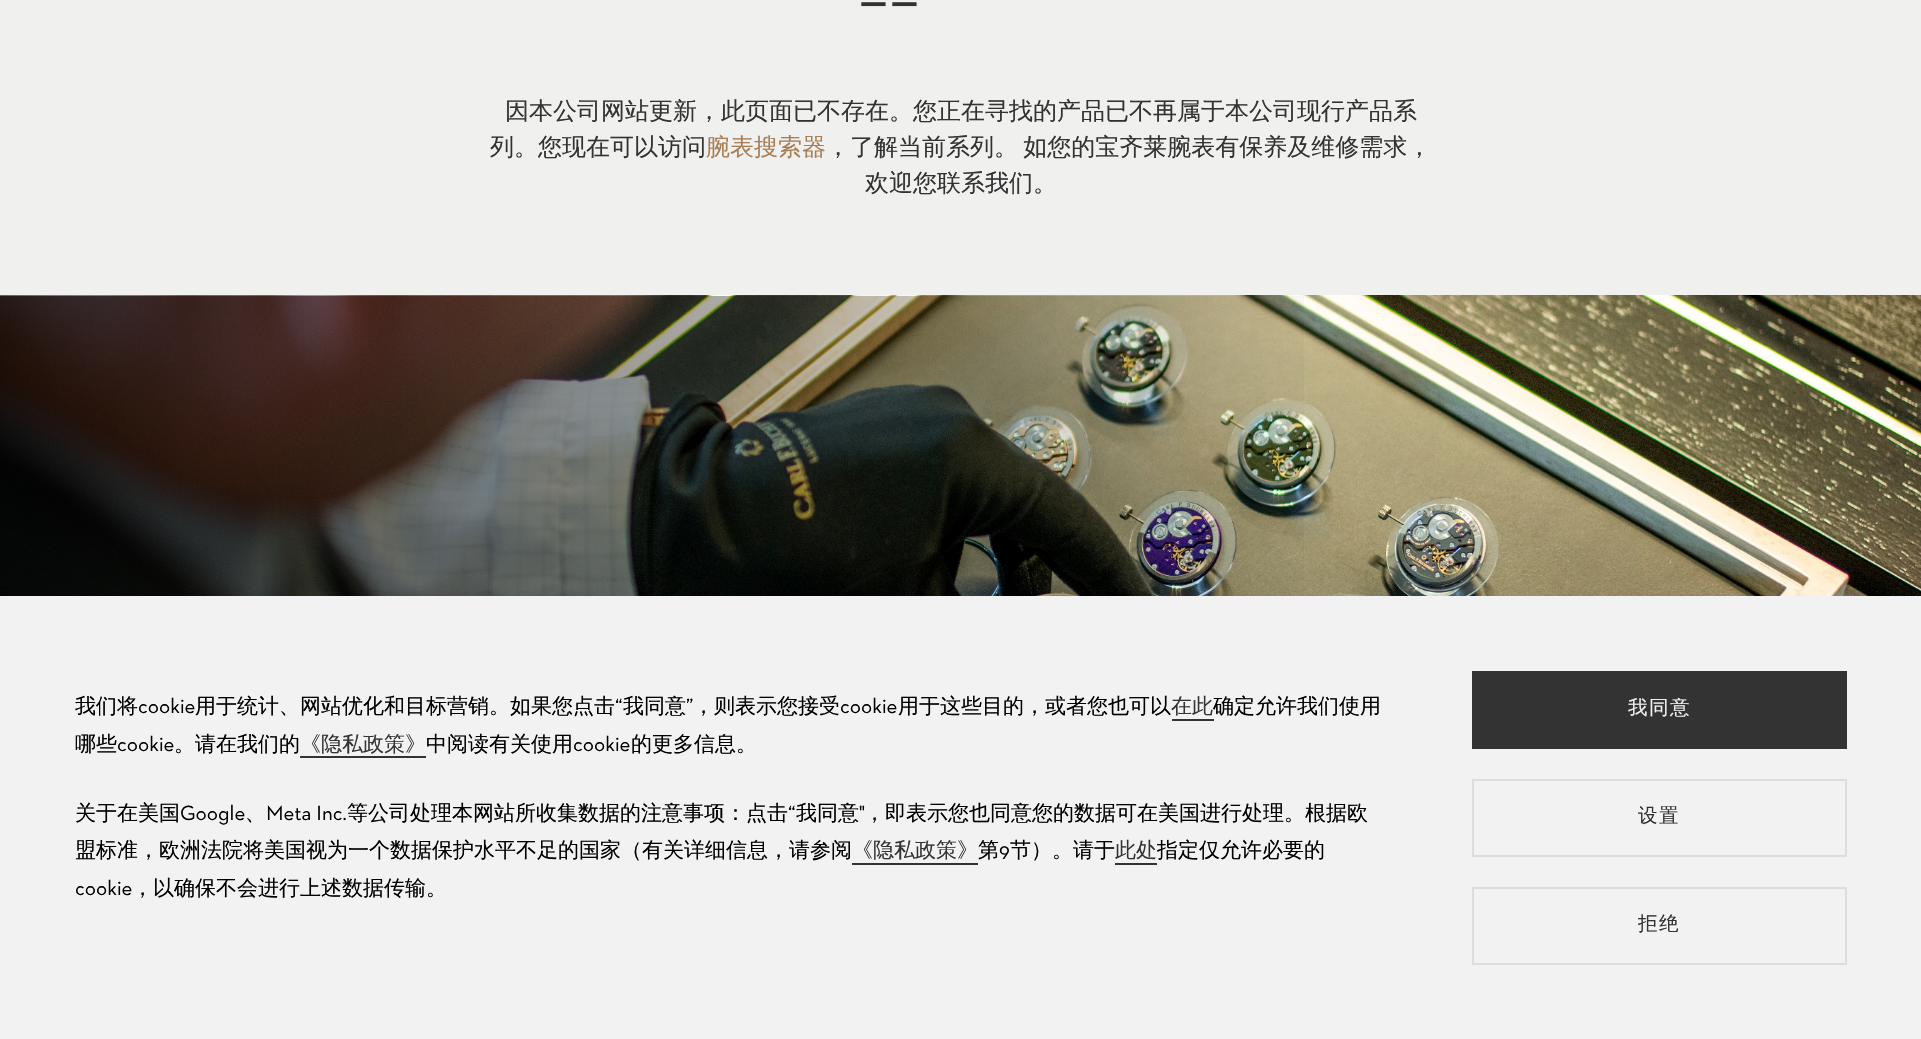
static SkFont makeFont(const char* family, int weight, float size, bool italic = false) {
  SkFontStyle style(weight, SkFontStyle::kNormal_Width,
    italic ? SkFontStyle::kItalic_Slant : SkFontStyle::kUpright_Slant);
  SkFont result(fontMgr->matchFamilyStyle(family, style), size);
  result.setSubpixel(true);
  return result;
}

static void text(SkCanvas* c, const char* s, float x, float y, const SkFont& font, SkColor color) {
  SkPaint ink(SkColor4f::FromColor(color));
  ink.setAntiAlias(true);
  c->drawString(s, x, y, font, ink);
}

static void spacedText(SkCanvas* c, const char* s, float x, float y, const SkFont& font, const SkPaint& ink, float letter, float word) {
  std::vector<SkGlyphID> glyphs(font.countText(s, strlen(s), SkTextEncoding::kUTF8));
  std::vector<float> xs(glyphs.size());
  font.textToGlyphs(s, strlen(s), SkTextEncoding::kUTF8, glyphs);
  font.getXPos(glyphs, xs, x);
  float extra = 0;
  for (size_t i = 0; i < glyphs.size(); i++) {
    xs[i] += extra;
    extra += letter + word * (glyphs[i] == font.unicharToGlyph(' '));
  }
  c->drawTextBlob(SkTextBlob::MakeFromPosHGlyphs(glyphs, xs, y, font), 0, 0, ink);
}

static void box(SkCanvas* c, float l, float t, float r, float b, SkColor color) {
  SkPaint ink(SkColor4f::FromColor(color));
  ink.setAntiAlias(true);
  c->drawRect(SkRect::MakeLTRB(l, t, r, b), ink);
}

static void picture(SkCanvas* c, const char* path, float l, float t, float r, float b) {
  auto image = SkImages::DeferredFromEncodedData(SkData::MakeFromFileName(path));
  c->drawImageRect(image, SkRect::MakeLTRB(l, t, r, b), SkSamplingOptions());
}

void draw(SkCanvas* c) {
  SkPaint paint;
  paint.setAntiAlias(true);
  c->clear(0xfff0f0ef);
  SkFont face1 = makeFont("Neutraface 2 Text", 600, 42);
  paint.setColor(0xff343333);
  spacedText(c, "——", 860, 13, face1, paint, 4, 0);
  SkFont face2 = makeFont("WenQuanYi Zen Hei", 500, 24);
  text(c, "因本公司网站更新，此页面已不存在。您正在寻找的产品已不再属于本公司现行产品系", 505, 119, face2, 0xff343333);
  text(c, "列。您现在可以访问", 490, 155, face2, 0xff343333);
  text(c, "腕表搜索器", 706, 155, face2, 0xffa87e57);
  spacedText(c, "，了解当前系列。 如您的宝齐莱腕表有保养及维修需求，", 826, 155, face2, paint, 0, -2);
  text(c, "欢迎您联系我们。", 865, 191, face2, 0xff343333);
  picture(c, "img_01.png", 0, 295, 1921, 596);
  {
    const SkColor colors[] = {0x00000000, 0xb3000000};
    const float stops[] = {0.3f, 1};
    const SkPoint ends[] = {{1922, 662}, {0, 662}};
    paint.setShader(SkGradientShader::MakeLinear(ends, colors, stops, 2, SkTileMode::kClamp));
    paint.setAlpha(255);
  }
  c->drawRect(SkRect::MakeLTRB(0, 296, 1304, 596), paint);
  box(c, 0, 596, 1921, 1039, 0xfff2f2f2);
  SkFont face3 = makeFont("WenQuanYi Zen Hei", 500, 21);
  text(c, "我们将", 75, 713, face3, 0xff000000);
  SkFont face4 = makeFont("Neutraface 2 Text", 400, 21);
  text(c, "cookie", 138, 713, face4, 0xff000000);
  text(c, "用于统计、网站优化和目标营销。如果您点击", 195, 713, face3, 0xff000000);
  text(c, "“", 615, 713, face4, 0xff000000);
  text(c, "我同意", 623, 713, face3, 0xff000000);
  text(c, "”", 686, 713, face4, 0xff000000);
  text(c, "，则表示您接受", 693, 713, face3, 0xff000000);
  text(c, "cookie", 840, 713, face4, 0xff000000);
  text(c, "用于这些目的，或者您也可以", 898, 713, face3, 0xff000000);
  text(c, "在此", 1171, 713, face3, 0xff343333);
  box(c, 1172, 719, 1214, 721, 0xff343333);
  text(c, "确定允许我们使用", 1213, 713, face3, 0xff000000);
  text(c, "哪些", 75, 751, face3, 0xff000000);
  text(c, "cookie", 117, 751, face4, 0xff000000);
  text(c, "。请在我们的", 174, 751, face3, 0xff000000);
  text(c, "《隐私政策》", 300, 751, face3, 0xff343333);
  box(c, 300, 756, 426, 758, 0xff343333);
  text(c, "中阅读有关使用", 426, 751, face3, 0xff000000);
  text(c, "cookie", 573, 751, face4, 0xff000000);
  text(c, "的更多信息。", 631, 751, face3, 0xff000000);
  text(c, "关于在美国", 75, 820, face3, 0xff000000);
  text(c, "Google", 180, 820, face4, 0xff000000);
  text(c, "Meta Inc.", 266, 820, face4, 0xff000000);
  text(c, "等公司处理本网站所收集数据的注意事项：点击", 347, 820, face3, 0xff000000);
  text(c, "“", 788, 820, face4, 0xff000000);
  text(c, "我同意", 796, 820, face3, 0xff000000);
  text(c, "\"", 859, 820, face4, 0xff000000);
  text(c, "，即表示您也同意您的数据可在美国进行处理。根据欧", 864, 820, face3, 0xff000000);
  text(c, "、", 245, 820, face3, 0xff000000);
  text(c, "盟标准，欧洲法院将美国视为一个数据保护水平不足的国家（有关详细信息，请参阅", 75, 857, face3, 0xff000000);
  text(c, "《隐私政策》", 852, 857, face3, 0xff343333);
  box(c, 852, 863, 978, 865, 0xff343333);
  text(c, "第", 978, 857, face3, 0xff000000);
  text(c, "9", 999, 857, face4, 0xff000000);
  text(c, "节）。请于", 1010, 857, face3, 0xff000000);
  text(c, "此处", 1115, 857, face3, 0xff343333);
  box(c, 1115, 863, 1157, 865, 0xff343333);
  text(c, "指定仅允许必要的", 1157, 857, face3, 0xff000000);
  text(c, "cookie", 75, 895, face4, 0xff000000);
  text(c, "，以确保不会进行上述数据传输。", 132, 895, face3, 0xff000000);
  box(c, 1472, 671, 1847, 749, 0xff343333);
  SkFont face5 = makeFont("WenQuanYi Zen Hei", 500, 19.5f);
  paint.setShader(nullptr);
  paint.setColor(0xfff0f0ef);
  spacedText(c, "我同意", 1628, 714, face5, paint, 1.5f, 0);
  paint.setStyle(SkPaint::kStroke_Style);
  paint.setStrokeWidth(2);
  paint.setColor(0xffdddddd);
  c->drawRect(SkRect::MakeLTRB(1473, 780, 1846, 856), paint);
  paint.setStyle(SkPaint::kFill_Style);
  paint.setColor(0xff343333);
  spacedText(c, "设置", 1638, 822, face5, paint, 1.5f, 0);
  paint.setStyle(SkPaint::kStroke_Style);
  paint.setColor(0xffdddddd);
  c->drawRect(SkRect::MakeLTRB(1473, 888, 1846, 964), paint);
  paint.setStyle(SkPaint::kFill_Style);
  paint.setColor(0xff343333);
  spacedText(c, "拒绝", 1638, 930, face5, paint, 1.5f, 0);
}
